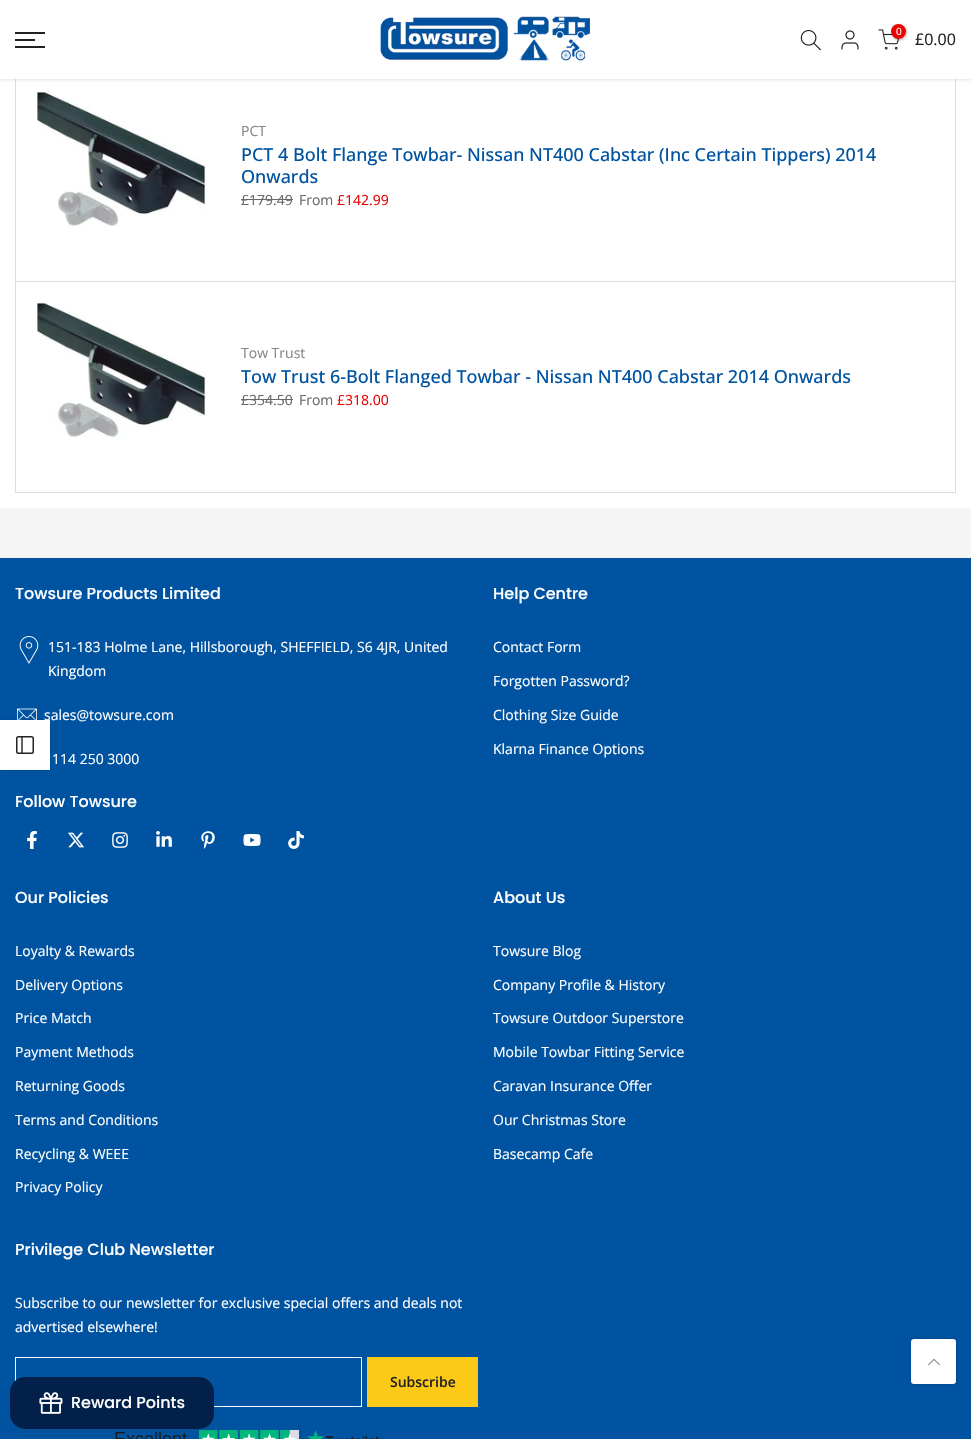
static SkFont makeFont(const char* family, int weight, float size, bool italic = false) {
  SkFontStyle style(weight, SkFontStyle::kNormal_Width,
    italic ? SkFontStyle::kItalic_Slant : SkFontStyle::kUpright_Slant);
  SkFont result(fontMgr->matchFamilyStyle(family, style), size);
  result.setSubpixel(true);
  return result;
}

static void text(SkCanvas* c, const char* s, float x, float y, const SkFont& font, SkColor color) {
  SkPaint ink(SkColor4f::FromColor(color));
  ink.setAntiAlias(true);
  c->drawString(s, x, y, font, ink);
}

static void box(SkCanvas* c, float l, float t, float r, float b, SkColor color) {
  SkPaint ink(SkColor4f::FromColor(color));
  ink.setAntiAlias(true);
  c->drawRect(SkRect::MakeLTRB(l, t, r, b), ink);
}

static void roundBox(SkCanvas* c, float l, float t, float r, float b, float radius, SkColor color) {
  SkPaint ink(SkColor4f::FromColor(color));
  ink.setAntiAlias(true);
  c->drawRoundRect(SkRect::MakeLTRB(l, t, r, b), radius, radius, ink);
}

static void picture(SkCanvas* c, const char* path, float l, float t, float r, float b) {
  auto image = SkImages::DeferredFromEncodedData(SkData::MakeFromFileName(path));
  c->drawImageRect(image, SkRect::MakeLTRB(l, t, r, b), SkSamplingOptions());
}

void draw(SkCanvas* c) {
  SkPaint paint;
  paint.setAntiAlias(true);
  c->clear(0xffffffff);
  box(c, 955, 79, 956, 281, 0xffdddddd);
  box(c, 15, 79, 16, 281, 0xffdddddd);
  paint.setColor(0x1a000000);
  paint.setMaskFilter(SkMaskFilter::MakeBlur(kNormal_SkBlurStyle, 1.5f));
  c->drawRect(SkRect::MakeLTRB(0, 1, 971, 80), paint);
  paint.setMaskFilter(nullptr);
  box(c, 0, 0, 971, 79, 0xffffffff);
  box(c, 15, 32, 45, 34, 0xff222222);
  box(c, 15, 39, 35, 41, 0xff222222);
  box(c, 15, 46, 45, 48, 0xff222222);
  picture(c, "img_01.png", 379, 16, 590, 61);
  picture(c, "img_02.png", 800, 29, 821, 51);
  picture(c, "img_03.png", 841, 30, 859, 50);
  picture(c, "img_04.png", 878, 29, 899, 50);
  paint.setColor(0x4d000000);
  paint.setMaskFilter(SkMaskFilter::MakeBlur(kNormal_SkBlurStyle, 1.5f));
  c->drawRoundRect(SkRect::MakeLTRB(892, 25, 907, 40), 7.5f, 7.5f, paint);
  paint.setMaskFilter(nullptr);
  paint.setColor(0xffec0101);
  c->drawCircle(898.5f, 31.5f, 7.5f, paint);
  SkFont face1 = makeFont("Open Sans", 400, 10);
  text(c, "0", 896, 35, face1, 0xffffffff);
  SkFont face2 = makeFont("Open Sans", 400, 16);
  text(c, "£0.00", 915, 45, face2, 0xff222222);
  picture(c, "img_05.png", 37, 92, 208, 227);
  SkFont face3 = makeFont("Open Sans", 400, 14);
  text(c, "PCT", 241, 136, face3, 0xff878787);
  SkFont face4 = makeFont("Open Sans", 500, 18);
  text(c, "PCT 4 Bolt Flange Towbar- Nissan NT400 Cabstar (Inc Certain Tippers) 2014", 241, 161, face4, 0xff0053a0);
  text(c, "Onwards", 241, 183, face4, 0xff0053a0);
  text(c, "£179.49", 241, 205, face3, 0xff696969);
  box(c, 241, 199, 293, 200, 0xff696969);
  text(c, "From", 299, 205, face3, 0xff696969);
  text(c, "£142.99", 337, 205, face3, 0xffec0101);
  paint.setStyle(SkPaint::kStroke_Style);
  paint.setStrokeWidth(1);
  paint.setColor(0xffdddddd);
  c->drawRect(SkRect::MakeLTRB(15.5f, 281.5f, 955.5f, 492.5f), paint);
  picture(c, "img_06.png", 35, 303, 207, 438);
  text(c, "Tow Trust", 241, 358, face3, 0xff878787);
  text(c, "Tow Trust 6-Bolt Flanged Towbar - Nissan NT400 Cabstar 2014 Onwards", 241, 383, face4, 0xff0053a0);
  text(c, "£354.50", 241, 405, face3, 0xff696969);
  box(c, 241, 399, 293, 400, 0xff696969);
  text(c, "From", 299, 405, face3, 0xff696969);
  text(c, "£318.00", 337, 405, face3, 0xffec0101);
  box(c, 0, 508, 971, 558, 0xfff5f5f5);
  box(c, 0, 558, 971, 1439, 0xff0053a0);
  picture(c, "img_08.png", 17, 708, 37, 720);
  paint.setStyle(SkPaint::kFill_Style);
  paint.setColor(0x26000000);
  paint.setMaskFilter(SkMaskFilter::MakeBlur(kNormal_SkBlurStyle, 1.5f));
  c->drawRect(SkRect::MakeLTRB(0, 720, 50, 770), paint);
  paint.setMaskFilter(nullptr);
  box(c, 0, 720, 50, 770, 0xffffffff);
  paint.setStyle(SkPaint::kStroke_Style);
  paint.setStrokeWidth(1.5f);
  paint.setColor(0xff222222);
  c->drawRoundRect(SkRect::MakeLTRB(16.75f, 736.75f, 33.25f, 753.25f), 1.75f, 1.75f, paint);
  paint.setStrokeWidth(1.4f);
  paint.setStrokeCap(SkPaint::kRound_Cap);
  paint.setStrokeJoin(SkPaint::kRound_Join);
  c->drawPath(SkPathBuilder().moveTo(22, 737).lineTo(22, 753).detach(), paint);
  SkFont face5 = makeFont("Poppins", 500, 16);
  text(c, "Towsure Products Limited", 15, 599, face5, 0xffffffff);
  picture(c, "img_07.png", 19, 636, 39, 664);
  text(c, "151-183 Holme Lane, Hillsborough, SHEFFIELD, S6 4JR, United", 48, 652, face3, 0xffffffff);
  text(c, "Kingdom", 48, 676, face3, 0xffffffff);
  text(c, "sales@towsure.com", 44, 720, face3, 0xffffffff);
  text(c, "114 250 3000", 52, 764, face3, 0xffffffff);
  text(c, "Follow Towsure", 15, 807, face5, 0xffffffff);
  picture(c, "img_09.png", 27, 831, 37, 849);
  picture(c, "img_10.png", 68, 832, 84, 848);
  picture(c, "img_11.png", 112, 832, 128, 848);
  picture(c, "img_12.png", 156, 831, 172, 847);
  picture(c, "img_13.png", 201, 831, 215, 849);
  picture(c, "img_14.png", 243, 834, 261, 846);
  picture(c, "img_15.png", 288, 831, 304, 849);
  text(c, "Help Centre", 493, 599, face5, 0xffffffff);
  text(c, "Contact Form", 493, 652, face3, 0xffffffff);
  text(c, "Forgotten Password?", 493, 686, face3, 0xffffffff);
  text(c, "Clothing Size Guide", 493, 720, face3, 0xffffffff);
  text(c, "Klarna Finance Options", 493, 754, face3, 0xffffffff);
  text(c, "Our Policies", 15, 903, face5, 0xffffffff);
  text(c, "Loyalty & Rewards", 15, 956, face3, 0xffffffff);
  text(c, "Delivery Options", 15, 990, face3, 0xffffffff);
  text(c, "Price Match", 15, 1023, face3, 0xffffffff);
  text(c, "Payment Methods", 15, 1057, face3, 0xffffffff);
  text(c, "Returning Goods", 15, 1091, face3, 0xffffffff);
  text(c, "Terms and Conditions", 15, 1125, face3, 0xffffffff);
  text(c, "Recycling & WEEE", 15, 1159, face3, 0xffffffff);
  text(c, "Privacy Policy", 15, 1192, face3, 0xffffffff);
  text(c, "About Us", 493, 903, face5, 0xffffffff);
  text(c, "Towsure Blog", 493, 956, face3, 0xffffffff);
  text(c, "Company Profile & History", 493, 990, face3, 0xffffffff);
  text(c, "Towsure Outdoor Superstore", 493, 1023, face3, 0xffffffff);
  text(c, "Mobile Towbar Fitting Service", 493, 1057, face3, 0xffffffff);
  text(c, "Caravan Insurance Offer", 493, 1091, face3, 0xffffffff);
  text(c, "Our Christmas Store", 493, 1125, face3, 0xffffffff);
  text(c, "Basecamp Cafe", 493, 1159, face3, 0xffffffff);
  text(c, "Privilege Club Newsletter", 15, 1255, face5, 0xffffffff);
  text(c, "Subscribe to our newsletter for exclusive special offers and deals not", 15, 1308, face3, 0xffffffff);
  text(c, "advertised elsewhere!", 15, 1332, face3, 0xffffffff);
  paint.setStrokeWidth(1);
  paint.setStrokeCap(SkPaint::kButt_Cap);
  paint.setStrokeJoin(SkPaint::kMiter_Join);
  paint.setColor(0xffffffff);
  c->drawRect(SkRect::MakeLTRB(15.5f, 1357.5f, 361.5f, 1406.5f), paint);
  box(c, 367, 1357, 478, 1407, 0xfffcc917);
  SkFont face6 = makeFont("Open Sans", 600, 14);
  text(c, "Subscribe", 390, 1387, face6, 0xff222222);
  picture(c, "img_16.png", 115, 1430, 379, 1439);
  paint.setStyle(SkPaint::kFill_Style);
  paint.setColor(0x33000000);
  paint.setMaskFilter(SkMaskFilter::MakeBlur(kNormal_SkBlurStyle, 1.5f));
  c->drawRoundRect(SkRect::MakeLTRB(911, 1339, 956, 1384), 3, 3, paint);
  paint.setMaskFilter(nullptr);
  roundBox(c, 911, 1339, 956, 1384, 3, 0xffffffff);
  picture(c, "img_17.png", 928, 1358, 940, 1366);
  paint.setColor(0x14444444);
  paint.setMaskFilter(SkMaskFilter::MakeBlur(kNormal_SkBlurStyle, 4));
  c->drawRoundRect(SkRect::MakeLTRB(12, 1383, 212, 1431), 13, 13, paint);
  paint.setMaskFilter(nullptr);
  roundBox(c, 10, 1377, 214, 1429, 15, 0xff02204a);
  picture(c, "img_18.png", 39, 1392, 63, 1414);
  text(c, "Reward Points", 71, 1408, face5, 0xffffffff);
}
